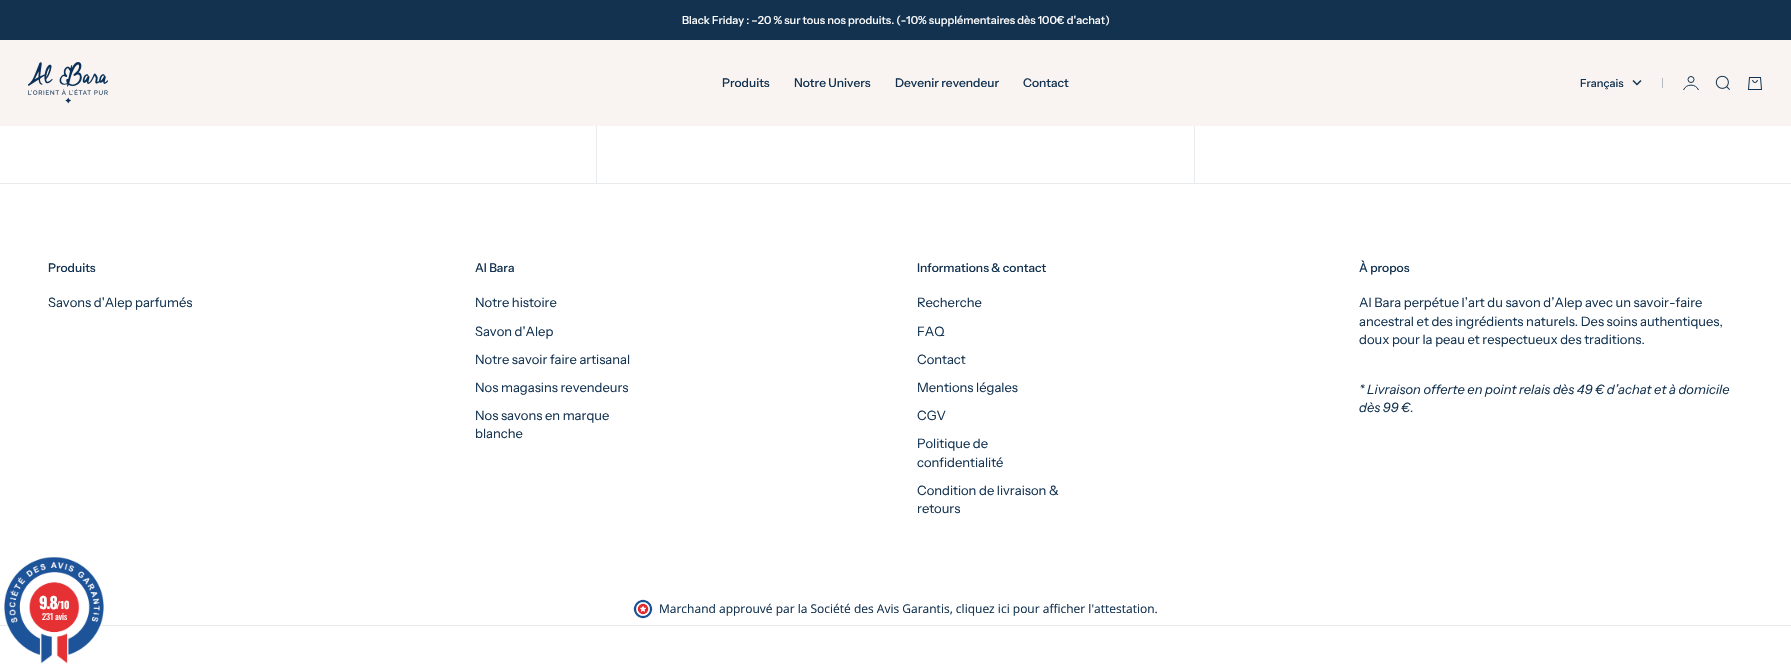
static SkFont makeFont(const char* family, int weight, float size, bool italic = false) {
  SkFontStyle style(weight, SkFontStyle::kNormal_Width,
    italic ? SkFontStyle::kItalic_Slant : SkFontStyle::kUpright_Slant);
  SkFont result(fontMgr->matchFamilyStyle(family, style), size);
  result.setSubpixel(true);
  return result;
}

static void text(SkCanvas* c, const char* s, float x, float y, const SkFont& font, SkColor color) {
  SkPaint ink(SkColor4f::FromColor(color));
  ink.setAntiAlias(true);
  c->drawString(s, x, y, font, ink);
}

static void spacedText(SkCanvas* c, const char* s, float x, float y, const SkFont& font, const SkPaint& ink, float letter, float word) {
  std::vector<SkGlyphID> glyphs(font.countText(s, strlen(s), SkTextEncoding::kUTF8));
  std::vector<float> xs(glyphs.size());
  font.textToGlyphs(s, strlen(s), SkTextEncoding::kUTF8, glyphs);
  font.getXPos(glyphs, xs, x);
  float extra = 0;
  for (size_t i = 0; i < glyphs.size(); i++) {
    xs[i] += extra;
    extra += letter + word * (glyphs[i] == font.unicharToGlyph(' '));
  }
  c->drawTextBlob(SkTextBlob::MakeFromPosHGlyphs(glyphs, xs, y, font), 0, 0, ink);
}

static void box(SkCanvas* c, float l, float t, float r, float b, SkColor color) {
  SkPaint ink(SkColor4f::FromColor(color));
  ink.setAntiAlias(true);
  c->drawRect(SkRect::MakeLTRB(l, t, r, b), ink);
}

static void picture(SkCanvas* c, const char* path, float l, float t, float r, float b) {
  auto image = SkImages::DeferredFromEncodedData(SkData::MakeFromFileName(path));
  c->drawImageRect(image, SkRect::MakeLTRB(l, t, r, b), SkSamplingOptions());
}

void draw(SkCanvas* c) {
  SkPaint paint;
  paint.setAntiAlias(true);
  c->clear(0xffffffff);
  box(c, 0, 0, 1791, 40, 0xff133250);
  SkFont face1 = makeFont("Instrument Sans", 500, 11);
  text(c, "Black Friday : –20 % sur tous nos produits. (-10% supplémentaires dès 100€ d'achat)", 682, 24, face1, 0xffffffff);
  box(c, 0, 40, 1791, 126, 0xfff9f4f1);
  picture(c, "img_01.png", 28, 62, 108, 104);
  SkFont face2 = makeFont("Instrument Sans", 500, 12);
  text(c, "Produits", 722, 87, face2, 0xff133250);
  text(c, "Notre Univers", 794, 87, face2, 0xff133250);
  text(c, "Devenir revendeur", 895, 87, face2, 0xff133250);
  text(c, "Contact", 1023, 87, face2, 0xff133250);
  text(c, "Français", 1580, 87, face1, 0xff133250);
  paint.setStyle(SkPaint::kStroke_Style);
  paint.setStrokeWidth(1.5f);
  paint.setColor(0xff133250);
  c->drawPath(SkPathBuilder().moveTo(1633, 80.5f).lineTo(1637, 84.5f).lineTo(1641, 80.5f).detach(), paint);
  box(c, 1662, 78, 1663, 88, 0xffb4bac1);
  paint.setStrokeWidth(1);
  c->drawPath(SkPathBuilder().moveTo(1698.5f, 90).cubicTo(1696, 83.5f, 1686, 83.5f, 1683.5f, 90).detach(), paint);
  c->drawCircle(1691, 79.5f, 3, paint);
  picture(c, "img_02.png", 1715, 75, 1730, 90);
  picture(c, "img_03.png", 1748, 77, 1762, 90);
  box(c, 0, 183, 1791, 184, 0xffe7ebee);
  box(c, 596, 126, 597, 183, 0xffe7ebee);
  box(c, 1194, 126, 1195, 183, 0xffe7ebee);
  text(c, "Produits", 48, 272, face2, 0xff133250);
  SkFont face3 = makeFont("Instrument Sans", 400, 13);
  text(c, "Savons d'Alep parfumés", 48, 307, face3, 0xff133250);
  text(c, "Al Bara", 475, 272, face2, 0xff133250);
  text(c, "Notre histoire", 475, 307, face3, 0xff133250);
  text(c, "Savon d'Alep", 475, 336, face3, 0xff133250);
  text(c, "Notre savoir faire artisanal", 475, 364, face3, 0xff133250);
  text(c, "Nos magasins revendeurs", 475, 392, face3, 0xff133250);
  text(c, "Nos savons en marque", 475, 420, face3, 0xff133250);
  text(c, "blanche", 475, 438, face3, 0xff133250);
  text(c, "Informations & contact", 917, 272, face2, 0xff133250);
  text(c, "Recherche", 917, 307, face3, 0xff133250);
  text(c, "FAQ", 917, 336, face3, 0xff133250);
  text(c, "Contact", 917, 364, face3, 0xff133250);
  text(c, "Mentions légales", 917, 392, face3, 0xff133250);
  text(c, "CGV", 917, 420, face3, 0xff133250);
  text(c, "Politique de", 917, 448, face3, 0xff133250);
  text(c, "confidentialité", 917, 467, face3, 0xff133250);
  text(c, "Condition de livraison &", 917, 495, face3, 0xff133250);
  text(c, "retours", 917, 513, face3, 0xff133250);
  text(c, "À propos", 1359, 272, face2, 0xff133250);
  text(c, "Al Bara perpétue l’art du savon d’Alep avec un savoir-faire", 1359, 307, face3, 0xff133250);
  text(c, "ancestral et des ingrédients naturels. Des soins authentiques,", 1359, 326, face3, 0xff133250);
  text(c, "doux pour la peau et respectueux des traditions.", 1359, 344, face3, 0xff133250);
  SkFont face4 = makeFont("Instrument Sans", 400, 13, true);
  text(c, "* Livraison offerte en point relais dès 49 € d’achat et à domicile", 1359, 394, face4, 0xff133250);
  text(c, "dès 99 €.", 1359, 412, face4, 0xff133250);
  picture(c, "img_04.png", 633, 599, 653, 619);
  SkFont face5 = makeFont("Open Sans", 400, 12);
  text(c, "Marchand approuvé par la Société des Avis Garantis, cliquez ici pour afficher l'attestation.", 659, 613, face5, 0xff133250);
  box(c, 0, 625, 1791, 626, 0xffe7ebee);
  picture(c, "img_05.png", 4, 557, 104, 664);
  SkFont face6 = makeFont("Oswald", 700, 16);
  paint.setStyle(SkPaint::kFill_Style);
  paint.setColor(0xffffffff);
  spacedText(c, "9.8", 39, 609, face6, paint, -1, 0);
  SkFont face7 = makeFont("Oswald", 700, 10);
  text(c, "/10", 56, 609, face7, 0xffffffff);
  SkFont face8 = makeFont("Oswald", 400, 8.5f);
  text(c, "231 avis", 42, 620, face8, 0xffffffff);
}
